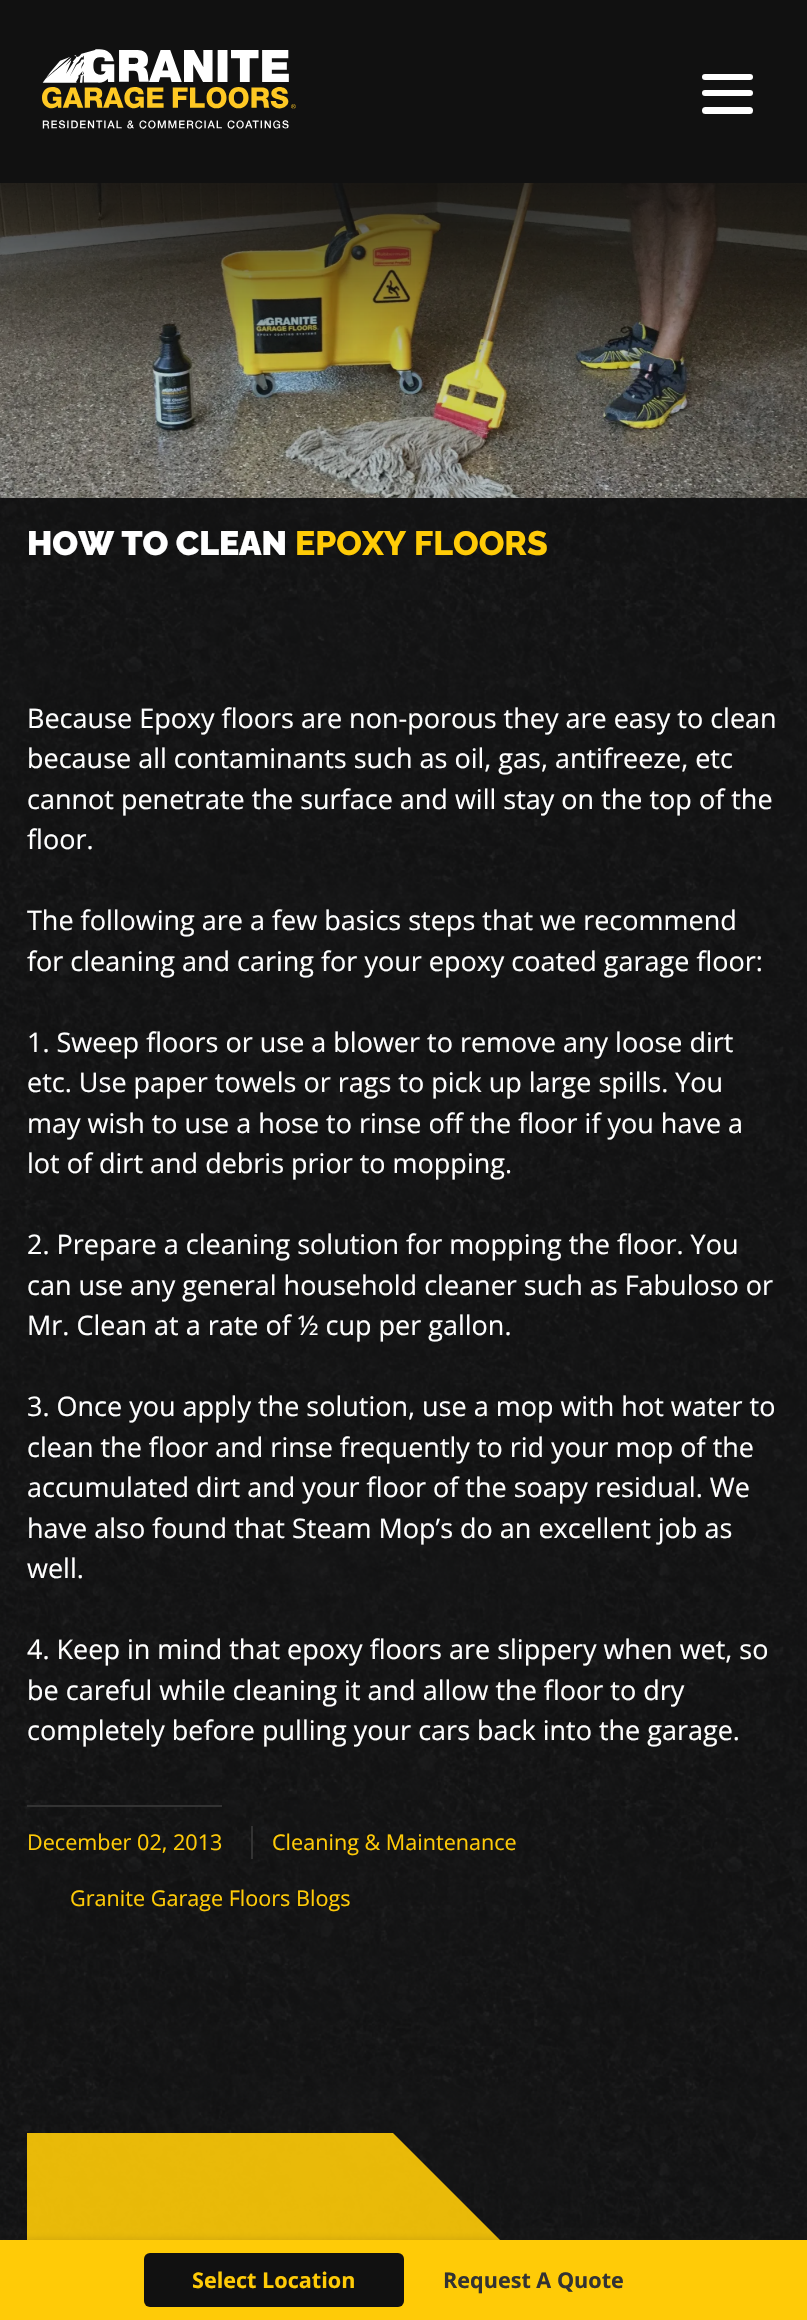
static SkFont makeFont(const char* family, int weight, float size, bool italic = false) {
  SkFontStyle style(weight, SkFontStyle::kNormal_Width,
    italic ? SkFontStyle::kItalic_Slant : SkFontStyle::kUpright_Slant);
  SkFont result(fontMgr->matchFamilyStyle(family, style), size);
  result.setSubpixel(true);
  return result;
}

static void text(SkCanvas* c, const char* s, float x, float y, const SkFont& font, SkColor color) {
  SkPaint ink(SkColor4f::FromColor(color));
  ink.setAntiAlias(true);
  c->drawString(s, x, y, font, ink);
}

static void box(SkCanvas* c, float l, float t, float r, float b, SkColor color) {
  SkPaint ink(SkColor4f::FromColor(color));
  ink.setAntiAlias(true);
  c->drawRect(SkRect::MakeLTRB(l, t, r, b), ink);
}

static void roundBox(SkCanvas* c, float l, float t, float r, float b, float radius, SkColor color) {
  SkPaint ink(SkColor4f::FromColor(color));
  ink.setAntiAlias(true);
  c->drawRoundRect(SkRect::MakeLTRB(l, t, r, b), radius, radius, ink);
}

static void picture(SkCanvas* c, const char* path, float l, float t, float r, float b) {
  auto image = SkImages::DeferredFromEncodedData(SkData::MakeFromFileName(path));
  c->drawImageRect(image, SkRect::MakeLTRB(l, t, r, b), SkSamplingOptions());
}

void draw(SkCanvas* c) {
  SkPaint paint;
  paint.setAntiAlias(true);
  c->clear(0xffffffff);
  picture(c, "img_01.png", 0, 498, 807, 2240);
  box(c, 0, 0, 807, 183, 0xff111111);
  picture(c, "img_02.png", 42, 49, 296, 129);
  roundBox(c, 702, 90, 753, 96, 3, 0xffffffff);
  roundBox(c, 702, 74, 753, 80, 3, 0xffffffff);
  roundBox(c, 702, 107, 753, 114, 3.5f, 0xffffffff);
  picture(c, "img_03.png", 0, 183, 807, 498);
  {
    const SkColor colors[] = {0xcc111111, 0x33111111};
    const float stops[] = {0, 0.5f};
    const SkPoint ends[] = {{404, 183}, {404, 563}};
    paint.setShader(SkGradientShader::MakeLinear(ends, colors, stops, 2, SkTileMode::kClamp));
    paint.setAlpha(255);
  }
  c->drawRect(SkRect::MakeLTRB(0, 183, 807, 563), paint);
  SkFont face1 = makeFont("Raleway", 900, 33.75f);
  text(c, "HOW TO CLEAN", 27, 555, face1, 0xffffffff);
  SkFont face2 = makeFont("Raleway", 800, 33.75f);
  text(c, "EPOXY FLOORS", 295, 555, face2, 0xffffcb07);
  SkFont face3 = makeFont("Open Sans", 400, 27);
  text(c, "Because Epoxy floors are non-porous they are easy to clean", 27, 728, face3, 0xffffffff);
  text(c, "because all contaminants such as oil, gas, antifreeze, etc", 27, 768, face3, 0xffffffff);
  text(c, "cannot penetrate the surface and will stay on the top of the", 27, 809, face3, 0xffffffff);
  text(c, "floor.", 27, 849, face3, 0xffffffff);
  text(c, "The following are a few basics steps that we recommend", 27, 930, face3, 0xffffffff);
  text(c, "for cleaning and caring for your epoxy coated garage floor:", 27, 971, face3, 0xffffffff);
  text(c, "1. Sweep floors or use a blower to remove any loose dirt", 27, 1052, face3, 0xffffffff);
  text(c, "etc. Use paper towels or rags to pick up large spills. You", 27, 1092, face3, 0xffffffff);
  text(c, "may wish to use a hose to rinse off the floor if you have a", 27, 1133, face3, 0xffffffff);
  text(c, "lot of dirt and debris prior to mopping.", 27, 1173, face3, 0xffffffff);
  text(c, "2. Prepare a cleaning solution for mopping the floor. You", 27, 1254, face3, 0xffffffff);
  text(c, "can use any general household cleaner such as Fabuloso or", 27, 1295, face3, 0xffffffff);
  text(c, "Mr. Clean at a rate of ½ cup per gallon.", 27, 1335, face3, 0xffffffff);
  text(c, "3. Once you apply the solution, use a mop with hot water to", 27, 1416, face3, 0xffffffff);
  text(c, "clean the floor and rinse frequently to rid your mop of the", 27, 1457, face3, 0xffffffff);
  text(c, "accumulated dirt and your floor of the soapy residual. We", 27, 1497, face3, 0xffffffff);
  text(c, "have also found that Steam Mop’s do an excellent job as", 27, 1538, face3, 0xffffffff);
  text(c, "well.", 27, 1578, face3, 0xffffffff);
  text(c, "4. Keep in mind that epoxy floors are slippery when wet, so", 27, 1659, face3, 0xffffffff);
  text(c, "be careful while cleaning it and allow the floor to dry", 27, 1700, face3, 0xffffffff);
  text(c, "completely before pulling your cars back into the garage.", 27, 1740, face3, 0xffffffff);
  box(c, 27, 1805, 222, 1807, 0xff333333);
  SkFont face4 = makeFont("Open Sans", 400, 21.6f);
  text(c, "December 02, 2013", 27, 1850, face4, 0xffffcb07);
  box(c, 251, 1826, 253, 1859, 0xff333333);
  text(c, "Cleaning & Maintenance", 272, 1850, face4, 0xffffcb07);
  text(c, "Granite Garage Floors Blogs", 70, 1906, face4, 0xffffcb07);
  c->save();
  c->clipRect(SkRect::MakeLTRB(27, 2133, 780, 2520));
  paint.setShader(nullptr);
  paint.setColor(0xe6ffcb07);
  c->drawPath(SkPathBuilder().moveTo(-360, 2133).lineTo(393, 2133).lineTo(780, 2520).lineTo(27, 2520).close().detach(), paint);
  c->restore();
  paint.setColor(0x26111111);
  paint.setMaskFilter(SkMaskFilter::MakeBlur(kNormal_SkBlurStyle, 4));
  c->drawRect(SkRect::MakeLTRB(0, 2240, 807, 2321), paint);
  paint.setMaskFilter(nullptr);
  box(c, 0, 2240, 807, 2320, 0xffffcb07);
  roundBox(c, 144, 2253, 404, 2307, 6, 0xff111111);
  SkFont face5 = makeFont("Open Sans", 700, 21.6f);
  text(c, "Select Location", 192, 2288, face5, 0xffffcb07);
  text(c, "Request A Quote", 443, 2288, face5, 0xff333333);
}
